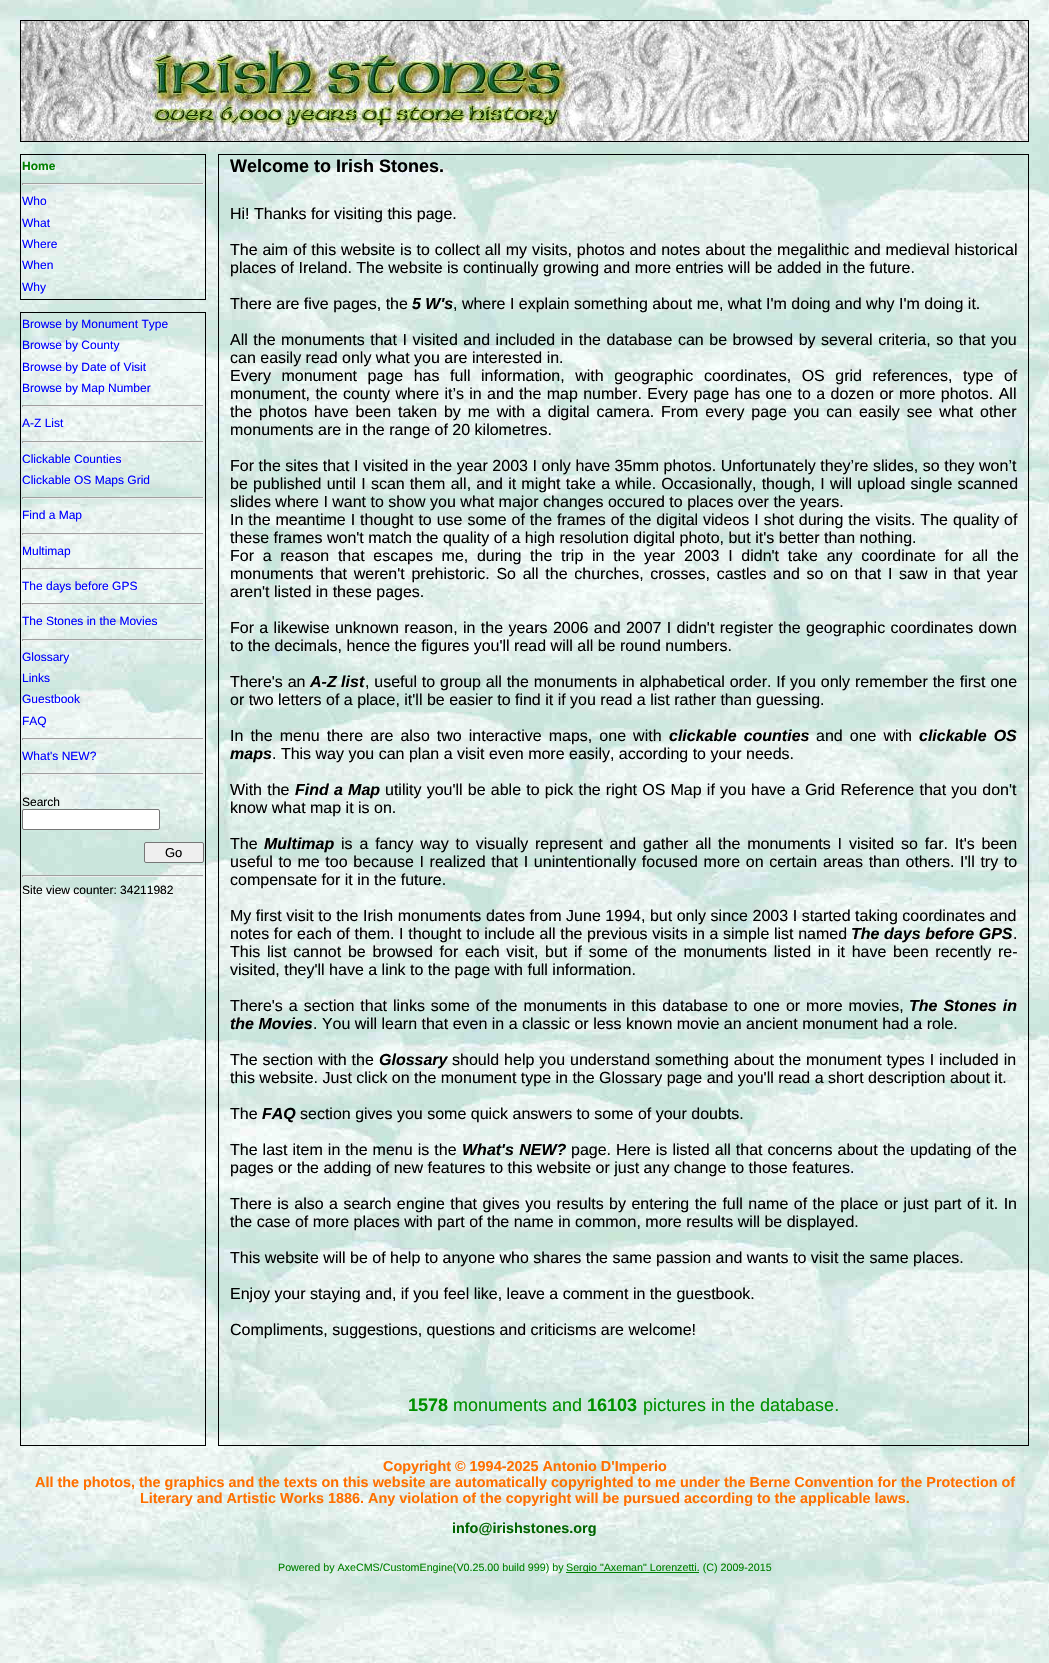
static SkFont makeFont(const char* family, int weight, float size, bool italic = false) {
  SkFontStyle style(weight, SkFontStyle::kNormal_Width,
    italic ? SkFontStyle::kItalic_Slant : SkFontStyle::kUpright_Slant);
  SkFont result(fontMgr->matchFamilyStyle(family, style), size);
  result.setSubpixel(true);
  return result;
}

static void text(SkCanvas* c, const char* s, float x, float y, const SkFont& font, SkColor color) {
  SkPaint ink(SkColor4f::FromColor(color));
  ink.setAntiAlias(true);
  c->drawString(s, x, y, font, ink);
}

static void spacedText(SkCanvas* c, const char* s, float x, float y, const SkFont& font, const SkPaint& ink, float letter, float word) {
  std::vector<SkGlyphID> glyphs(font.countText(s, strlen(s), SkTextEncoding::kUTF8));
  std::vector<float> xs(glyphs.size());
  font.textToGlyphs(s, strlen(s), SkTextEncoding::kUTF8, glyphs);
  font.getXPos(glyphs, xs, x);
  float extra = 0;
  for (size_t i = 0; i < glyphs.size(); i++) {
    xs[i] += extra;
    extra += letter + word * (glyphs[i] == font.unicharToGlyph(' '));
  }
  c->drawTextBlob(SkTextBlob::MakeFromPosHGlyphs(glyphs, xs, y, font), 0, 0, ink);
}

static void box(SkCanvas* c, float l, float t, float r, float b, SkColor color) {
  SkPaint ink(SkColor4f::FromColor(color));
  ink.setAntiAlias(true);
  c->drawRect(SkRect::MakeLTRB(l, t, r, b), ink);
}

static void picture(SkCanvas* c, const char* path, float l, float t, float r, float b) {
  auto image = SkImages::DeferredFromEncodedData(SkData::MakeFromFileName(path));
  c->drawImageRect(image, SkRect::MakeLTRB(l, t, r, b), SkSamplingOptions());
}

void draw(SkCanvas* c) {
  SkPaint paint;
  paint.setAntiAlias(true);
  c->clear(0xffffffff);
  picture(c, "img_01.png", 0, 0, 1049, 1663);
  picture(c, "img_02.png", 21, 21, 1028, 141);
  paint.setStyle(SkPaint::kStroke_Style);
  paint.setStrokeWidth(1);
  paint.setColor(0xff000000);
  c->drawRect(SkRect::MakeLTRB(20.5f, 20.5f, 1028.5f, 141.5f), paint);
  c->drawRect(SkRect::MakeLTRB(20.5f, 154.5f, 205.5f, 299.5f), paint);
  SkFont face1 = makeFont("Liberation Sans", 700, 12);
  text(c, "Home", 22, 170, face1, 0xff008000);
  box(c, 22, 183, 204, 184, 0xff9f9f9f);
  box(c, 203, 183, 204, 185, 0xffeeeeee);
  box(c, 22, 184, 204, 185, 0xffeeeeee);
  box(c, 22, 183, 23, 185, 0xff9f9f9f);
  SkFont face2 = makeFont("Liberation Sans", 400, 12);
  text(c, "Who", 22, 205, face2, 0xff0000ff);
  text(c, "What", 22, 227, face2, 0xff0000ff);
  text(c, "Where", 22, 248, face2, 0xff0000ff);
  text(c, "When", 22, 269, face2, 0xff0000ff);
  text(c, "Why", 22, 291, face2, 0xff0000ff);
  c->drawRect(SkRect::MakeLTRB(218.5f, 154.5f, 1028.5f, 1445.5f), paint);
  SkFont face3 = makeFont("Liberation Sans", 700, 18);
  text(c, "Welcome to Irish Stones.", 230, 172, face3, 0xff000000);
  SkFont face4 = makeFont("Liberation Sans", 400, 16);
  text(c, "Hi! Thanks for visiting this page.", 230, 219, face4, 0xff000000);
  paint.setStyle(SkPaint::kFill_Style);
  spacedText(c, "The aim of this website is to collect all my visits, photos and notes about the megalithic and medieval historical", 230, 255, face4, paint, 0, 0.4f);
  text(c, "places of Ireland. The website is continually growing and more entries will be added in the future.", 230, 273, face4, 0xff000000);
  text(c, "There are five pages, the", 230, 309, face4, 0xff000000);
  SkFont face5 = makeFont("Liberation Sans", 700, 16, true);
  text(c, "5 W's", 412, 309, face5, 0xff000000);
  text(c, ", where I explain something about me, what I'm doing and why I'm doing it.", 453, 309, face4, 0xff000000);
  spacedText(c, "All the monuments that I visited and included in the database can be browsed by several criteria, so that you", 230, 345, face4, paint, 0, 1.1f);
  text(c, "can easily read only what you are interested in.", 230, 363, face4, 0xff000000);
  spacedText(c, "Every monument page has full information, with geographic coordinates, OS grid references, type of", 230, 381, face4, paint, 0, 6.1f);
  spacedText(c, "monument, the county where it’s in and the map number. Every page has one to a dozen or more photos. All", 230, 399, face4, paint, 0, 0.9f);
  spacedText(c, "the photos have been taken by me with a digital camera. From every page you can easily see what other", 230, 417, face4, paint, 0, 2.4f);
  text(c, "monuments are in the range of 20 kilometres.", 230, 435, face4, 0xff000000);
  spacedText(c, "For the sites that I visited in the year 2003 I only have 35mm photos. Unfortunately they’re slides, so they won’t", 230, 471, face4, paint, 0, 0.1f);
  spacedText(c, "be published until I scan them all, and it might take a while. Occasionally, though, I will upload single scanned", 230, 489, face4, paint, 0, 0.75f);
  text(c, "slides where I want to show you what major changes occured to places over the years.", 230, 507, face4, 0xff000000);
  spacedText(c, "In the meantime I thought to use some of the frames of the digital videos I shot during the visits. The quality of", 230, 525, face4, paint, 0, 0.5f);
  text(c, "these frames won't match the quality of a high resolution digital photo, but it's better than nothing.", 230, 543, face4, 0xff000000);
  spacedText(c, "For a reason that escapes me, during the trip in the year 2003 I didn't take any coordinate for all the", 230, 561, face4, paint, 0, 4.25f);
  spacedText(c, "monuments that weren't prehistoric. So all the churches, crosses, castles and so on that I saw in that year", 230, 579, face4, paint, 0, 2.25f);
  text(c, "aren't listed in these pages.", 230, 597, face4, 0xff000000);
  spacedText(c, "For a likewise unknown reason, in the years 2006 and 2007 I didn't register the geographic coordinates down", 230, 633, face4, paint, 0, 0.9f);
  text(c, "to the decimals, hence the figures you'll read will all be round numbers.", 230, 651, face4, 0xff000000);
  spacedText(c, "There's an", 230, 687, face4, paint, 0, 0.4f);
  text(c, "A-Z list", 310, 687, face5, 0xff000000);
  spacedText(c, ", useful to group all the monuments in alphabetical order. If you only remember the first one", 365, 687, face4, paint, 0, 0.4f);
  text(c, "or two letters of a place, it'll be easier to find it if you read a list rather than guessing.", 230, 705, face4, 0xff000000);
  spacedText(c, "In the menu there are also two interactive maps, one with", 230, 741, face4, paint, 0, 2.6f);
  spacedText(c, "clickable counties", 669, 741, face5, paint, 0, 2.6f);
  spacedText(c, "and one with", 816, 741, face4, paint, 0, 2.6f);
  spacedText(c, "clickable OS", 919, 741, face5, paint, 0, 2.6f);
  text(c, "maps", 230, 759, face5, 0xff000000);
  text(c, ". This way you can plan a visit even more easily, according to your needs.", 272, 759, face4, 0xff000000);
  spacedText(c, "With the", 230, 795, face4, paint, 0, 0.75f);
  spacedText(c, "Find a Map", 295, 795, face5, paint, 0, 0.75f);
  spacedText(c, "utility you'll be able to pick the right OS Map if you have a Grid Reference that you don't", 385, 795, face4, paint, 0, 0.75f);
  text(c, "know what map it is on.", 230, 813, face4, 0xff000000);
  text(c, "The", 230, 849, face4, 0xff000000);
  text(c, "Multimap", 264, 849, face5, 0xff000000);
  spacedText(c, "is a fancy way to visually represent and gather all the monuments I visited so far. It's been", 341, 849, face4, paint, 0, 2.4f);
  spacedText(c, "useful to me too because I realized that I unintentionally focused more on certain areas than others. I'll try to", 230, 867, face4, paint, 0, 1.25f);
  text(c, "compensate for it in the future.", 230, 885, face4, 0xff000000);
  spacedText(c, "My first visit to the Irish monuments dates from June 1994, but only since 2003 I started taking coordinates and", 230, 921, face4, paint, 0, 0.1f);
  spacedText(c, "notes for each of them. I thought to include all the previous visits in a simple list named", 230, 939, face4, paint, 0, 0.2f);
  spacedText(c, "The days before GPS", 851, 939, face5, paint, 0, 0.2f);
  text(c, ".", 1013, 939, face4, 0xff000000);
  spacedText(c, "This list cannot be browsed for each visit, but if some of the monuments listed in it have been recently re-", 230, 957, face4, paint, 0, 2.25f);
  text(c, "visited, they'll have a link to the page with full information.", 230, 975, face4, 0xff000000);
  spacedText(c, "There's a section that links some of the monuments in this database to one or more movies,", 230, 1011, face4, paint, 0, 1.5f);
  spacedText(c, "The Stones in", 909, 1011, face5, paint, 0, 1.5f);
  text(c, "the Movies", 230, 1029, face5, 0xff000000);
  text(c, ". You will learn that even in a classic or less known movie an ancient monument had a role.", 313, 1029, face4, 0xff000000);
  spacedText(c, "The section with the", 230, 1065, face4, paint, 0, 0.5f);
  text(c, "Glossary", 379, 1065, face5, 0xff000000);
  spacedText(c, "should help you understand something about the monument types I included in", 452, 1065, face4, paint, 0, 0.5f);
  text(c, "this website. Just click on the monument type in the Glossary page and you'll read a short description about it.", 230, 1083, face4, 0xff000000);
  text(c, "The", 230, 1119, face4, 0xff000000);
  text(c, "FAQ", 262, 1119, face5, 0xff000000);
  text(c, "section gives you some quick answers to some of your doubts.", 300, 1119, face4, 0xff000000);
  spacedText(c, "The last item in the menu is the", 230, 1155, face4, paint, 0, 0.6f);
  spacedText(c, "What's NEW?", 462, 1155, face5, paint, 0, 1);
  spacedText(c, "page. Here is listed all that concerns about the updating of the", 571, 1155, face4, paint, 0, 0.6f);
  text(c, "pages or the adding of new features to this website or just any change to those features.", 230, 1173, face4, 0xff000000);
  spacedText(c, "There is also a search engine that gives you results by entering the full name of the place or just part of it. In", 230, 1209, face4, paint, 0, 1);
  text(c, "the case of more places with part of the name in common, more results will be displayed.", 230, 1227, face4, 0xff000000);
  text(c, "This website will be of help to anyone who shares the same passion and wants to visit the same places.", 230, 1263, face4, 0xff000000);
  text(c, "Enjoy your staying and, if you feel like, leave a comment in the guestbook.", 230, 1299, face4, 0xff000000);
  text(c, "Compliments, suggestions, questions and criticisms are welcome!", 230, 1335, face4, 0xff000000);
  text(c, "1578", 408, 1411, face3, 0xff009000);
  SkFont face6 = makeFont("Liberation Sans", 400, 18);
  text(c, "monuments and", 453, 1411, face6, 0xff009000);
  text(c, "16103", 587, 1411, face3, 0xff009000);
  text(c, "pictures in the database.", 643, 1411, face6, 0xff009000);
  paint.setStyle(SkPaint::kStroke_Style);
  c->drawRect(SkRect::MakeLTRB(20.5f, 312.5f, 205.5f, 1445.5f), paint);
  text(c, "Browse by Monument Type", 22, 328, face2, 0xff0000ff);
  text(c, "Browse by County", 22, 349, face2, 0xff0000ff);
  text(c, "Browse by Date of Visit", 22, 371, face2, 0xff0000ff);
  text(c, "Browse by Map Number", 22, 392, face2, 0xff0000ff);
  box(c, 22, 405, 204, 406, 0xff9f9f9f);
  box(c, 203, 405, 204, 407, 0xffeeeeee);
  box(c, 22, 406, 204, 407, 0xffeeeeee);
  box(c, 22, 405, 23, 407, 0xff9f9f9f);
  text(c, "A-Z List", 22, 427, face2, 0xff0000ff);
  box(c, 22, 441, 204, 442, 0xff9f9f9f);
  box(c, 203, 441, 204, 443, 0xffeeeeee);
  box(c, 22, 442, 204, 443, 0xffeeeeee);
  box(c, 22, 441, 23, 443, 0xff9f9f9f);
  text(c, "Clickable Counties", 22, 463, face2, 0xff0000ff);
  text(c, "Clickable OS Maps Grid", 22, 484, face2, 0xff0000ff);
  box(c, 22, 497, 204, 498, 0xff9f9f9f);
  box(c, 203, 497, 204, 499, 0xffeeeeee);
  box(c, 22, 498, 204, 499, 0xffeeeeee);
  box(c, 22, 497, 23, 499, 0xff9f9f9f);
  text(c, "Find a Map", 22, 519, face2, 0xff0000ff);
  box(c, 22, 533, 204, 534, 0xff9f9f9f);
  box(c, 203, 533, 204, 535, 0xffeeeeee);
  box(c, 22, 534, 204, 535, 0xffeeeeee);
  box(c, 22, 533, 23, 535, 0xff9f9f9f);
  text(c, "Multimap", 22, 555, face2, 0xff0000ff);
  box(c, 22, 568, 204, 569, 0xff9f9f9f);
  box(c, 203, 568, 204, 570, 0xffeeeeee);
  box(c, 22, 569, 204, 570, 0xffeeeeee);
  box(c, 22, 568, 23, 570, 0xff9f9f9f);
  text(c, "The days before GPS", 22, 590, face2, 0xff0000ff);
  box(c, 22, 603, 204, 604, 0xff9f9f9f);
  box(c, 203, 603, 204, 605, 0xffeeeeee);
  box(c, 22, 604, 204, 605, 0xffeeeeee);
  box(c, 22, 603, 23, 605, 0xff9f9f9f);
  text(c, "The Stones in the Movies", 22, 625, face2, 0xff0000ff);
  box(c, 22, 639, 204, 640, 0xff9f9f9f);
  box(c, 203, 639, 204, 641, 0xffeeeeee);
  box(c, 22, 640, 204, 641, 0xffeeeeee);
  box(c, 22, 639, 23, 641, 0xff9f9f9f);
  text(c, "Glossary", 22, 661, face2, 0xff0000ff);
  text(c, "Links", 22, 682, face2, 0xff0000ff);
  text(c, "Guestbook", 22, 703, face2, 0xff0000ff);
  text(c, "FAQ", 22, 725, face2, 0xff0000ff);
  box(c, 22, 738, 204, 739, 0xff9f9f9f);
  box(c, 203, 738, 204, 740, 0xffeeeeee);
  box(c, 22, 739, 204, 740, 0xffeeeeee);
  box(c, 22, 738, 23, 740, 0xff9f9f9f);
  text(c, "What's NEW?", 22, 760, face2, 0xff0000ff);
  box(c, 22, 773, 204, 774, 0xff9f9f9f);
  box(c, 203, 773, 204, 775, 0xffeeeeee);
  box(c, 22, 774, 204, 775, 0xffeeeeee);
  box(c, 22, 773, 23, 775, 0xff9f9f9f);
  text(c, "Search", 22, 806, face2, 0xff000000);
  paint.setStyle(SkPaint::kFill_Style);
  paint.setColor(0xffffffff);
  c->drawRoundRect(SkRect::MakeLTRB(22.5f, 809.5f, 159.5f, 829.5f), 1.5f, 1.5f, paint);
  paint.setStyle(SkPaint::kStroke_Style);
  paint.setColor(0xff767676);
  c->drawRoundRect(SkRect::MakeLTRB(22.5f, 809.5f, 159.5f, 829.5f), 1.5f, 1.5f, paint);
  paint.setStyle(SkPaint::kFill_Style);
  paint.setColor(0xffefefef);
  c->drawRoundRect(SkRect::MakeLTRB(144.5f, 842.5f, 203.5f, 862.5f), 1.5f, 1.5f, paint);
  paint.setStyle(SkPaint::kStroke_Style);
  paint.setColor(0xff767676);
  c->drawRoundRect(SkRect::MakeLTRB(144.5f, 842.5f, 203.5f, 862.5f), 1.5f, 1.5f, paint);
  SkFont face7 = makeFont("Liberation Sans", 400, 13);
  text(c, "Go", 165, 857, face7, 0xff000000);
  box(c, 22, 875, 204, 876, 0xff9f9f9f);
  box(c, 203, 875, 204, 877, 0xffeeeeee);
  box(c, 22, 876, 204, 877, 0xffeeeeee);
  box(c, 22, 875, 23, 877, 0xff9f9f9f);
  text(c, "Site view counter: 34211982", 22, 894, face2, 0xff000000);
  SkFont face8 = makeFont("Liberation Sans", 700, 14.4f);
  text(c, "Copyright © 1994-2025 Antonio D'Imperio", 383, 1471, face8, 0xffff7000);
  text(c, "All the photos, the graphics and the texts on this website are automatically copyrighted to me under the Berne Convention for the Protection of", 35, 1487, face8, 0xffff7000);
  text(c, "Literary and Artistic Works 1886. Any violation of the copyright will be pursued according to the applicable laws.", 140, 1503, face8, 0xffff7000);
  text(c, "info@irishstones.org", 452, 1533, face8, 0xff006400);
  SkFont face9 = makeFont("Liberation Sans", 400, 10.7f);
  text(c, "Powered by AxeCMS/CustomEngine(V0.25.00 build 999) by", 278, 1571, face9, 0xff008000);
  box(c, 566, 1572, 699, 1573, 0xff008000);
  text(c, "Sergio \"Axeman\" Lorenzetti. (C) 2009-2015", 566, 1571, face9, 0xff008000);
}
